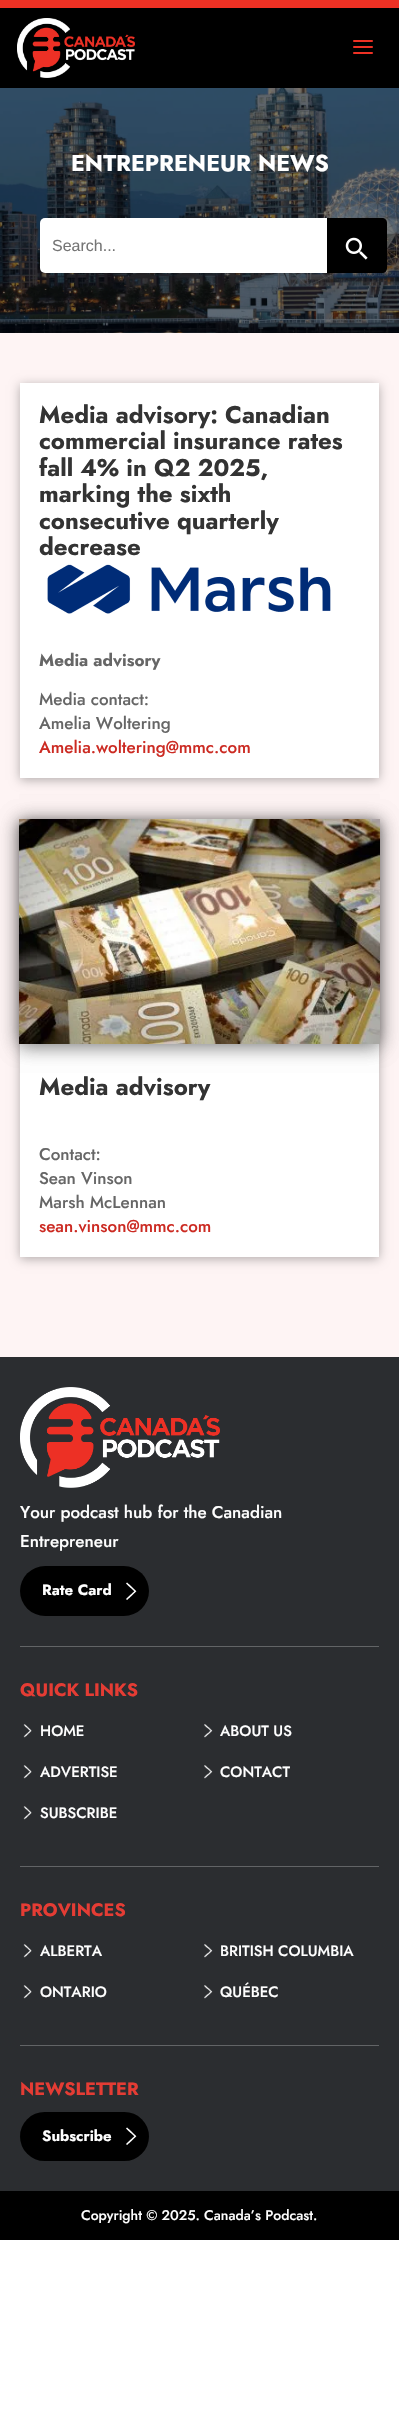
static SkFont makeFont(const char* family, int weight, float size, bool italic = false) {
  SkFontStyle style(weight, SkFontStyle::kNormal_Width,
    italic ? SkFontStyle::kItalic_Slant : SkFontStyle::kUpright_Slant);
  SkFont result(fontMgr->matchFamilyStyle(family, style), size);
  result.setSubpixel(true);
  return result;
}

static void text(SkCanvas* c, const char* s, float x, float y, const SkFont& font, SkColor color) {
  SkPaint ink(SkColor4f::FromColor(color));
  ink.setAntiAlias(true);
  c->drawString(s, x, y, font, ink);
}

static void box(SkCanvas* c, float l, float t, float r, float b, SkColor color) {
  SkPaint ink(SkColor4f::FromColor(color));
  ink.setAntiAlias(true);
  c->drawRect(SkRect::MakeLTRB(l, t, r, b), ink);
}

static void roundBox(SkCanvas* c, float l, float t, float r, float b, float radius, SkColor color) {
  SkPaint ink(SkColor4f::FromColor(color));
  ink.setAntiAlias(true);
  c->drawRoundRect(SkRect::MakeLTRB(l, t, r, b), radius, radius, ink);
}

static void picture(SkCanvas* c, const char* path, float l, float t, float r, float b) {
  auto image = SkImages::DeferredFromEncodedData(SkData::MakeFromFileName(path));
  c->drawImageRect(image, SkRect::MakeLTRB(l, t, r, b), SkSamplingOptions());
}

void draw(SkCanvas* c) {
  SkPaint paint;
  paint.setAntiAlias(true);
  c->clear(0xffffffff);
  box(c, 0, 8, 399, 88, 0xff000000);
  box(c, 0, 0, 399, 8, 0xffee3124);
  picture(c, "img_01.png", 17, 18, 135, 78);
  picture(c, "img_02.png", 353, 40, 373, 54);
  picture(c, "img_03.png", 0, 88, 399, 333);
  SkFont face1 = makeFont("Jost", 700, 23);
  text(c, "ENTREPRENEUR NEWS", 71, 171, face1, 0xffffffff);
  roundBox(c, 40, 218, 363, 273, 5, 0xffffffff);
  SkFont face2 = makeFont("Liberation Sans", 400, 16);
  text(c, "Search...", 52, 251, face2, 0xff757575);
  paint.setColor(0xff000000);
  c->drawPath(SkPathBuilder().moveTo(327, 218).lineTo(382, 218).cubicTo(385, 218, 387, 220, 387, 223).lineTo(387, 268).cubicTo(387, 271, 385, 273, 382, 273).lineTo(327, 273).close().detach(), paint);
  picture(c, "img_04.png", 345, 237, 368, 260);
  box(c, 0, 333, 399, 1357, 0xfffef4f4);
  paint.setColor(0x4d000000);
  paint.setMaskFilter(SkMaskFilter::MakeBlur(kNormal_SkBlurStyle, 5));
  c->drawRect(SkRect::MakeLTRB(20, 385, 379, 780), paint);
  paint.setMaskFilter(nullptr);
  box(c, 20, 383, 379, 778, 0xffffffff);
  SkFont face3 = makeFont("Jost", 700, 24);
  text(c, "Media advisory: Canadian", 39, 423, face3, 0xff333333);
  text(c, "commercial insurance rates", 39, 449, face3, 0xff333333);
  text(c, "fall 4% in Q2 2025,", 39, 476, face3, 0xff333333);
  text(c, "marking the sixth", 39, 502, face3, 0xff333333);
  text(c, "consecutive quarterly", 39, 529, face3, 0xff333333);
  text(c, "decrease", 39, 555, face3, 0xff333333);
  picture(c, "img_05.png", 47, 564, 331, 614);
  SkFont face4 = makeFont("Jost", 700, 17);
  text(c, "Media advisory", 39, 666, face4, 0xff666666);
  SkFont face5 = makeFont("Jost", 500, 17);
  text(c, "Media contact:", 39, 705, face5, 0xff666666);
  text(c, "Amelia Woltering", 39, 729, face5, 0xff666666);
  text(c, "Amelia.woltering@mmc.com", 39, 753, face5, 0xffcc2a22);
  paint.setMaskFilter(SkMaskFilter::MakeBlur(kNormal_SkBlurStyle, 5));
  c->drawRect(SkRect::MakeLTRB(20, 822, 379, 1259), paint);
  paint.setMaskFilter(nullptr);
  box(c, 20, 1044, 379, 1257, 0xffffffff);
  paint.setMaskFilter(SkMaskFilter::MakeBlur(kNormal_SkBlurStyle, 9));
  c->drawRect(SkRect::MakeLTRB(19, 821, 380, 1046), paint);
  paint.setMaskFilter(nullptr);
  paint.setMaskFilter(SkMaskFilter::MakeBlur(kNormal_SkBlurStyle, 9));
  c->drawRect(SkRect::MakeLTRB(19, 821, 380, 1046), paint);
  paint.setMaskFilter(nullptr);
  picture(c, "img_06.png", 19, 819, 380, 1044);
  text(c, "Media advisory", 39, 1095, face3, 0xff333333);
  text(c, "Contact:", 39, 1160, face5, 0xff666666);
  text(c, "Sean Vinson", 39, 1184, face5, 0xff666666);
  text(c, "Marsh McLennan", 39, 1208, face5, 0xff666666);
  text(c, "sean.vinson@mmc.com", 39, 1232, face5, 0xffcc2a22);
  box(c, 0, 1357, 399, 2191, 0xff2b2d30);
  box(c, 20, 1646, 379, 1647, 0xff626466);
  picture(c, "img_07.png", 20, 1387, 220, 1488);
  text(c, "Your podcast hub for the Canadian", 20, 1518, face5, 0xffffffff);
  text(c, "Entrepreneur", 20, 1547, face5, 0xffffffff);
  roundBox(c, 20, 1566, 149, 1616, 25, 0xff000000);
  picture(c, "img_08.png", 126, 1582, 137, 1600);
  SkFont face6 = makeFont("Jost", 700, 15);
  text(c, "Rate Card", 42, 1595, face6, 0xffffffff);
  box(c, 20, 1866, 379, 1867, 0xff626466);
  SkFont face7 = makeFont("Jost", 700, 18);
  text(c, "QUICK LINKS", 20, 1696, face7, 0xffe53c34);
  picture(c, "img_09.png", 23, 1724, 32, 1738);
  SkFont face8 = makeFont("Jost", 500, 15);
  text(c, "HOME", 40, 1736, face8, 0xffffffff);
  picture(c, "img_10.png", 204, 1724, 213, 1738);
  text(c, "ABOUT US", 220, 1736, face8, 0xffffffff);
  picture(c, "img_09.png", 23, 1765, 32, 1779);
  text(c, "ADVERTISE", 40, 1777, face8, 0xffffffff);
  picture(c, "img_10.png", 204, 1765, 213, 1779);
  text(c, "CONTACT", 220, 1777, face8, 0xffffffff);
  picture(c, "img_09.png", 23, 1806, 32, 1820);
  text(c, "SUBSCRIBE", 40, 1818, face8, 0xffffffff);
  box(c, 20, 2045, 379, 2046, 0xff626466);
  text(c, "PROVINCES", 20, 1916, face7, 0xffe53c34);
  picture(c, "img_09.png", 23, 1944, 32, 1958);
  text(c, "ALBERTA", 40, 1956, face8, 0xffffffff);
  picture(c, "img_10.png", 204, 1944, 213, 1958);
  text(c, "BRITISH COLUMBIA", 220, 1956, face8, 0xffffffff);
  picture(c, "img_09.png", 23, 1985, 32, 1999);
  text(c, "ONTARIO", 40, 1997, face8, 0xffffffff);
  picture(c, "img_10.png", 204, 1985, 213, 1999);
  text(c, "QUÉBEC", 220, 1997, face8, 0xffffffff);
  text(c, "NEWSLETTER", 20, 2095, face7, 0xffe53c34);
  roundBox(c, 20, 2112, 149, 2161, 24.5f, 0xff000000);
  picture(c, "img_08.png", 126, 2127, 137, 2145);
  text(c, "Subscribe", 42, 2141, face6, 0xffffffff);
  box(c, 0, 2191, 399, 2240, 0xff000000);
  SkFont face9 = makeFont("Jost", 500, 14);
  text(c, "Copyright © 2025. Canada’s Podcast.", 81, 2220, face9, 0xffffffff);
}
